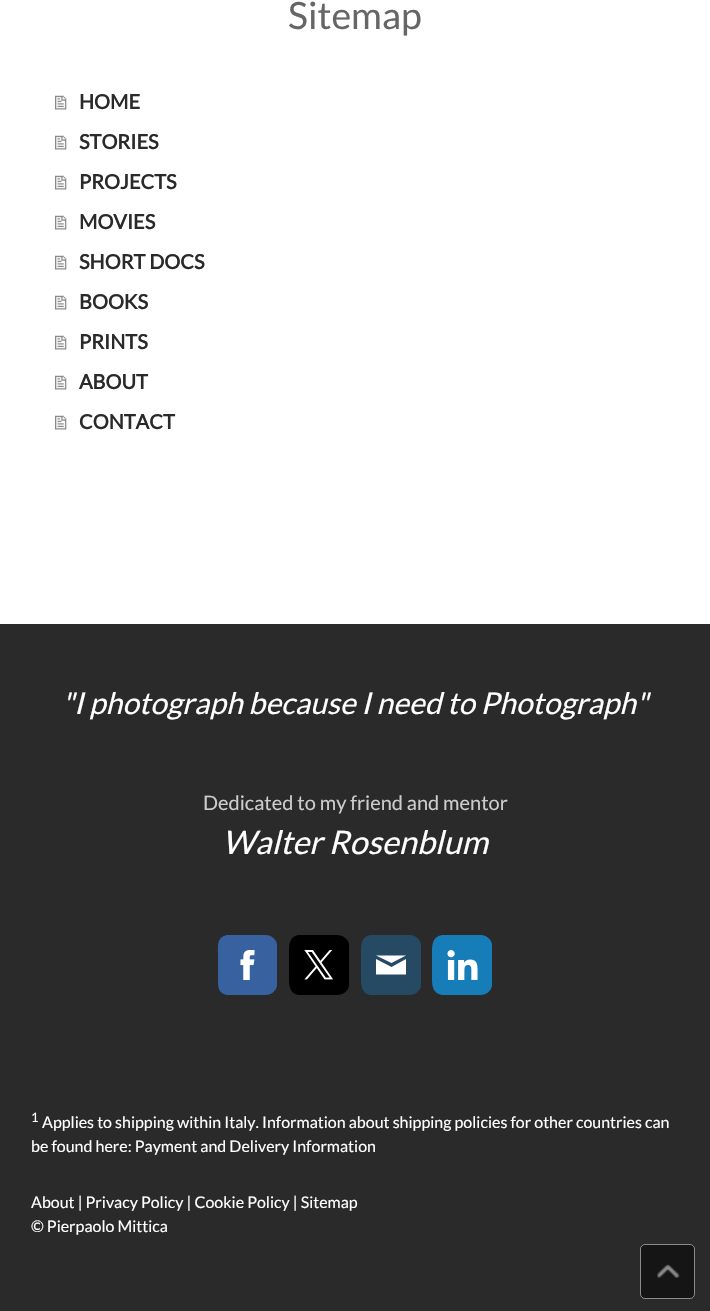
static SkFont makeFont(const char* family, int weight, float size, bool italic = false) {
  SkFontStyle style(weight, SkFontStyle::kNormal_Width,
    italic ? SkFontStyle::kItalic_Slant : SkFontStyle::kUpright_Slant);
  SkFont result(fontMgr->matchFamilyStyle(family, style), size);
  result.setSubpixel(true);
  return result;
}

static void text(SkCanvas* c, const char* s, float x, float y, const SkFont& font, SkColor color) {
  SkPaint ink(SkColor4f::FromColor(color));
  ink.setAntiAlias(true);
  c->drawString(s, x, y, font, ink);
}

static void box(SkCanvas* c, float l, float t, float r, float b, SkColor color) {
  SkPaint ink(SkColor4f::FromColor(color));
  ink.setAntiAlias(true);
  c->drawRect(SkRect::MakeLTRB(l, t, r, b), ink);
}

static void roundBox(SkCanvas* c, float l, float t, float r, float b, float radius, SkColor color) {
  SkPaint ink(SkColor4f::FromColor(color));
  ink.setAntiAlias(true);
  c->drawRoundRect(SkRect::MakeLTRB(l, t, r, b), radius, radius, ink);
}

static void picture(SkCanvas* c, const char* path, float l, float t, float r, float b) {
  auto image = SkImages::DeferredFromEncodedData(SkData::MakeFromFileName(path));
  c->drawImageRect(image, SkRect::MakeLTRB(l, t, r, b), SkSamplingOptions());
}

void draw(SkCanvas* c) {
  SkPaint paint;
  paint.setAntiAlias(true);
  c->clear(0xffffffff);
  SkFont face1 = makeFont("Lato", 400, 37.5f);
  text(c, "Sitemap", 288, 29, face1, 0xff666666);
  picture(c, "img_01.png", 55, 95, 67, 110);
  SkFont face2 = makeFont("Lato", 700, 20);
  text(c, "HOME", 79, 109, face2, 0xff2a2a2a);
  picture(c, "img_01.png", 55, 135, 67, 150);
  text(c, "STORIES", 79, 149, face2, 0xff2a2a2a);
  picture(c, "img_01.png", 55, 175, 67, 190);
  text(c, "PROJECTS", 79, 189, face2, 0xff2a2a2a);
  picture(c, "img_01.png", 55, 215, 67, 230);
  text(c, "MOVIES", 79, 229, face2, 0xff2a2a2a);
  picture(c, "img_01.png", 55, 255, 67, 270);
  text(c, "SHORT DOCS", 79, 269, face2, 0xff2a2a2a);
  picture(c, "img_01.png", 55, 295, 67, 310);
  text(c, "BOOKS", 79, 309, face2, 0xff2a2a2a);
  picture(c, "img_01.png", 55, 335, 67, 350);
  text(c, "PRINTS", 79, 349, face2, 0xff2a2a2a);
  picture(c, "img_01.png", 55, 375, 67, 390);
  text(c, "ABOUT", 79, 389, face2, 0xff2a2a2a);
  picture(c, "img_01.png", 55, 415, 67, 430);
  text(c, "CONTACT", 79, 429, face2, 0xff2a2a2a);
  box(c, 0, 624, 710, 1311, 0xff2a2a2a);
  SkFont face3 = makeFont("Lato", 400, 30, true);
  text(c, "\"I photograph because I need to Photograph\"", 62, 714, face3, 0xffffffff);
  SkFont face4 = makeFont("Lato", 400, 20);
  text(c, "Dedicated to my friend and mentor", 203, 810, face4, 0xffcccccc);
  SkFont face5 = makeFont("Lato", 400, 32.5f, true);
  text(c, "Walter Rosenblum", 222, 854, face5, 0xffffffff);
  paint.setColor(0xff38619f);
  c->drawPath(SkPathBuilder().moveTo(266, 995).lineTo(227, 995).cubicTo(217, 993, 218, 985, 218, 977).lineTo(218, 953).cubicTo(218, 945, 217, 937, 227, 935).lineTo(266, 935).cubicTo(271, 935, 276, 939, 277, 944).lineTo(277, 986).cubicTo(276, 991, 271, 995, 266, 995).close().detach(), paint);
  picture(c, "img_02.png", 240, 950, 255, 980);
  paint.setColor(0xff000000);
  c->drawPath(SkPathBuilder().moveTo(337, 995).lineTo(298, 995).cubicTo(289, 993, 289, 985, 289, 977).lineTo(289, 953).cubicTo(289, 945, 289, 937, 298, 935).lineTo(337, 935).cubicTo(343, 935, 348, 939, 349, 944).lineTo(349, 986).cubicTo(348, 991, 343, 995, 337, 995).close().detach(), paint);
  picture(c, "img_03.png", 304, 950, 333, 980);
  paint.setColor(0xff264a64);
  c->drawPath(SkPathBuilder().moveTo(410, 995).lineTo(370, 995).cubicTo(361, 993, 361, 985, 361, 977).lineTo(361, 953).cubicTo(361, 945, 361, 937, 370, 935).lineTo(410, 935).cubicTo(415, 935, 420, 939, 421, 944).lineTo(421, 986).cubicTo(420, 991, 415, 995, 410, 995).close().detach(), paint);
  paint.setColor(0xffffffff);
  c->drawPath(SkPathBuilder().moveTo(406, 974.5f).lineTo(376, 974.5f).lineTo(376, 959).lineTo(391.5f, 967).lineTo(406, 959).close().moveTo(406, 955.5f).lineTo(376, 955.5f).lineTo(391.5f, 963).close().detach(), paint);
  paint.setColor(0xff177db9);
  c->drawPath(SkPathBuilder().moveTo(481, 995).lineTo(442, 995).cubicTo(432, 993, 432, 985, 432, 977).lineTo(432, 953).cubicTo(432, 945, 432, 937, 442, 935).lineTo(481, 935).cubicTo(486, 935, 491, 939, 492, 944).lineTo(492, 986).cubicTo(491, 991, 486, 995, 481, 995).close().detach(), paint);
  picture(c, "img_04.png", 447, 950, 478, 980);
  SkFont face6 = makeFont("Lato", 400, 13);
  text(c, "1", 31, 1122, face6, 0xffffffff);
  SkFont face7 = makeFont("Lato", 400, 16);
  text(c, "Applies to shipping within Italy. Information about shipping policies for other countries can", 42, 1128, face7, 0xffffffff);
  text(c, "be found here: Payment and Delivery Information", 31, 1152, face7, 0xffffffff);
  text(c, "About | Privacy Policy | Cookie Policy | Sitemap", 31, 1208, face7, 0xffffffff);
  text(c, "© Pierpaolo Mittica", 31, 1232, face7, 0xffffffff);
  roundBox(c, 640, 1244, 695, 1299, 5, 0xff151515);
  paint.setStyle(SkPaint::kStroke_Style);
  paint.setStrokeWidth(1);
  paint.setColor(0x80ffffff);
  c->drawRoundRect(SkRect::MakeLTRB(640.5f, 1244.5f, 694.5f, 1298.5f), 4.5f, 4.5f, paint);
  picture(c, "img_05.png", 657, 1264, 680, 1278);
}
